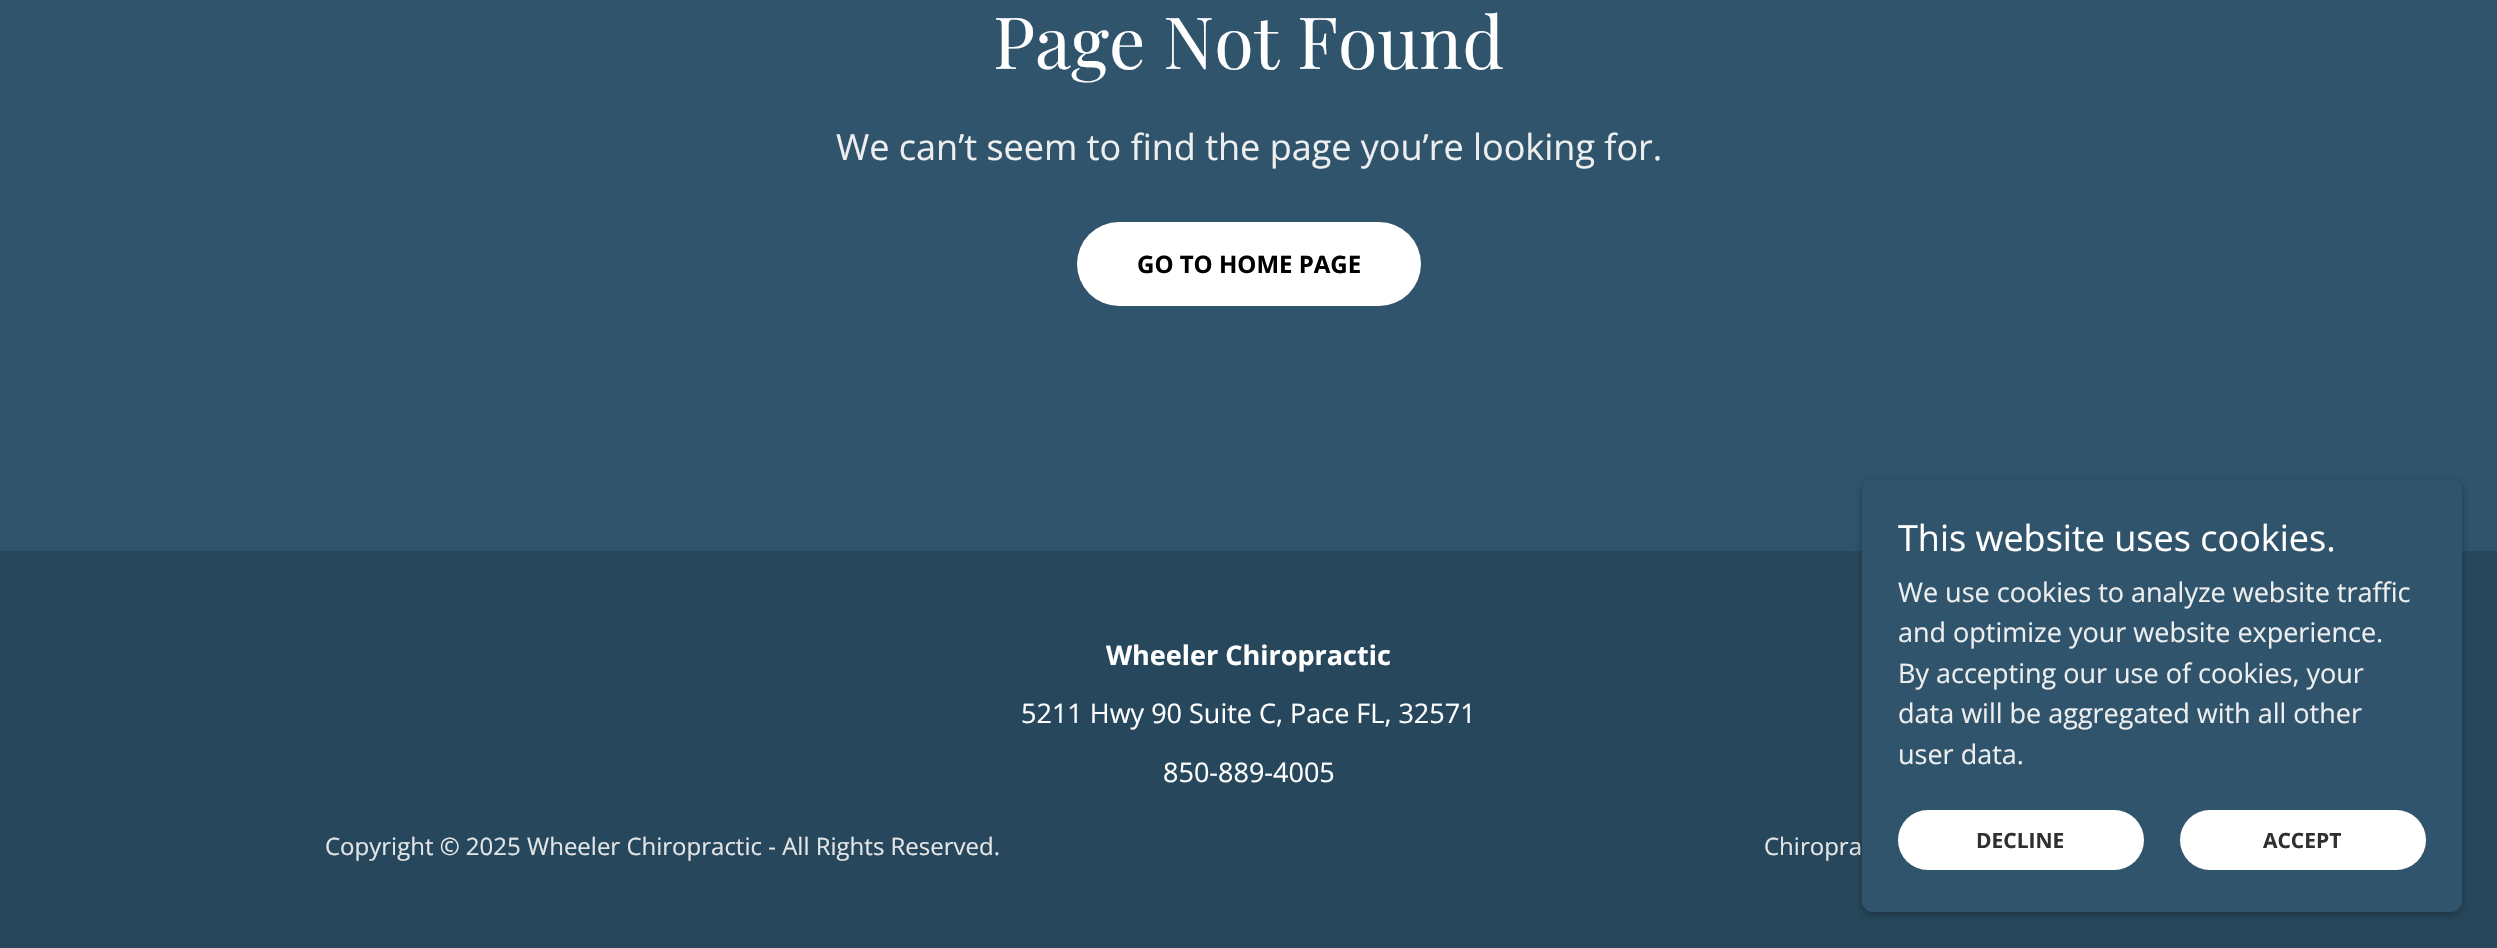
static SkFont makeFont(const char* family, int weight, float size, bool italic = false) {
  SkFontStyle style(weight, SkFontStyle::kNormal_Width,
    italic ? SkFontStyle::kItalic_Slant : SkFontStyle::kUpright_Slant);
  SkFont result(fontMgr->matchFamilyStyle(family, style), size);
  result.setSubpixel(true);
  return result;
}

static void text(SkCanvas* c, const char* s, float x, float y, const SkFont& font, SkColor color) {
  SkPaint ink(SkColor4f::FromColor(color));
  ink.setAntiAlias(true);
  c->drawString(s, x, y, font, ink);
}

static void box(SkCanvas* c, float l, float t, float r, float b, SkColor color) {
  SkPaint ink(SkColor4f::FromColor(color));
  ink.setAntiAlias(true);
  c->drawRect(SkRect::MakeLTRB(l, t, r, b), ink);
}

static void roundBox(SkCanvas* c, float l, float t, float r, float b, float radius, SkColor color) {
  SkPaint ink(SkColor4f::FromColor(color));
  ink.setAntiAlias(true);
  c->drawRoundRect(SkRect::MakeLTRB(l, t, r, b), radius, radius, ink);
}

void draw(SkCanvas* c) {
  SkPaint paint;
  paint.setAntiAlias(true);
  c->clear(0xff27485c);
  box(c, 0, 0, 2497, 551, 0xff2f546b);
  SkFont face1 = makeFont("Playfair Display", 400, 72);
  text(c, "Page Not Found", 993, 69, face1, 0xffffffff);
  SkFont face2 = makeFont("Open Sans", 400, 36);
  text(c, "We can’t seem to find the page you’re looking for.", 836, 160, face2, 0xffedeeef);
  roundBox(c, 1077, 222, 1421, 306, 42, 0xffffffff);
  SkFont face3 = makeFont("Open Sans", 700, 24);
  text(c, "GO TO HOME PAGE", 1137, 273, face3, 0xff000000);
  SkFont face4 = makeFont("Open Sans", 700, 27);
  text(c, "Wheeler Chiropractic", 1106, 665, face4, 0xffffffff);
  SkFont face5 = makeFont("Open Sans", 400, 27);
  text(c, "5211 Hwy 90 Suite C, Pace FL, 32571", 1021, 723, face5, 0xffffffff);
  text(c, "850-889-4005", 1163, 782, face5, 0xffffffff);
  SkFont face6 = makeFont("Open Sans", 400, 24);
  text(c, "Copyright © 2025 Wheeler Chiropractic - All Rights Reserved.", 325, 855, face6, 0xffe3e5e7);
  text(c, "Chiropra", 1764, 855, face6, 0xffe3e5e7);
  paint.setColor(0x4d000000);
  paint.setMaskFilter(SkMaskFilter::MakeBlur(kNormal_SkBlurStyle, 4.5f));
  c->drawRoundRect(SkRect::MakeLTRB(1862, 482, 2462, 915), 11, 11, paint);
  paint.setMaskFilter(nullptr);
  roundBox(c, 1862, 479, 2462, 912, 11, 0xff2f546b);
  text(c, "This website uses cookies.", 1898, 551, face2, 0xffffffff);
  text(c, "We use cookies to analyze website traffic", 1898, 602, face5, 0xffedeeef);
  text(c, "and optimize your website experience.", 1898, 642, face5, 0xffedeeef);
  text(c, "By accepting our use of cookies, your", 1898, 683, face5, 0xffedeeef);
  text(c, "data will be aggregated with all other", 1898, 723, face5, 0xffedeeef);
  text(c, "user data.", 1898, 764, face5, 0xffedeeef);
  roundBox(c, 1898, 810, 2144, 870, 30, 0xffffffff);
  SkFont face7 = makeFont("Open Sans", 700, 21);
  text(c, "DECLINE", 1976, 848, face7, 0xff303030);
  roundBox(c, 2180, 810, 2426, 870, 30, 0xffffffff);
  text(c, "ACCEPT", 2263, 848, face7, 0xff303030);
}
